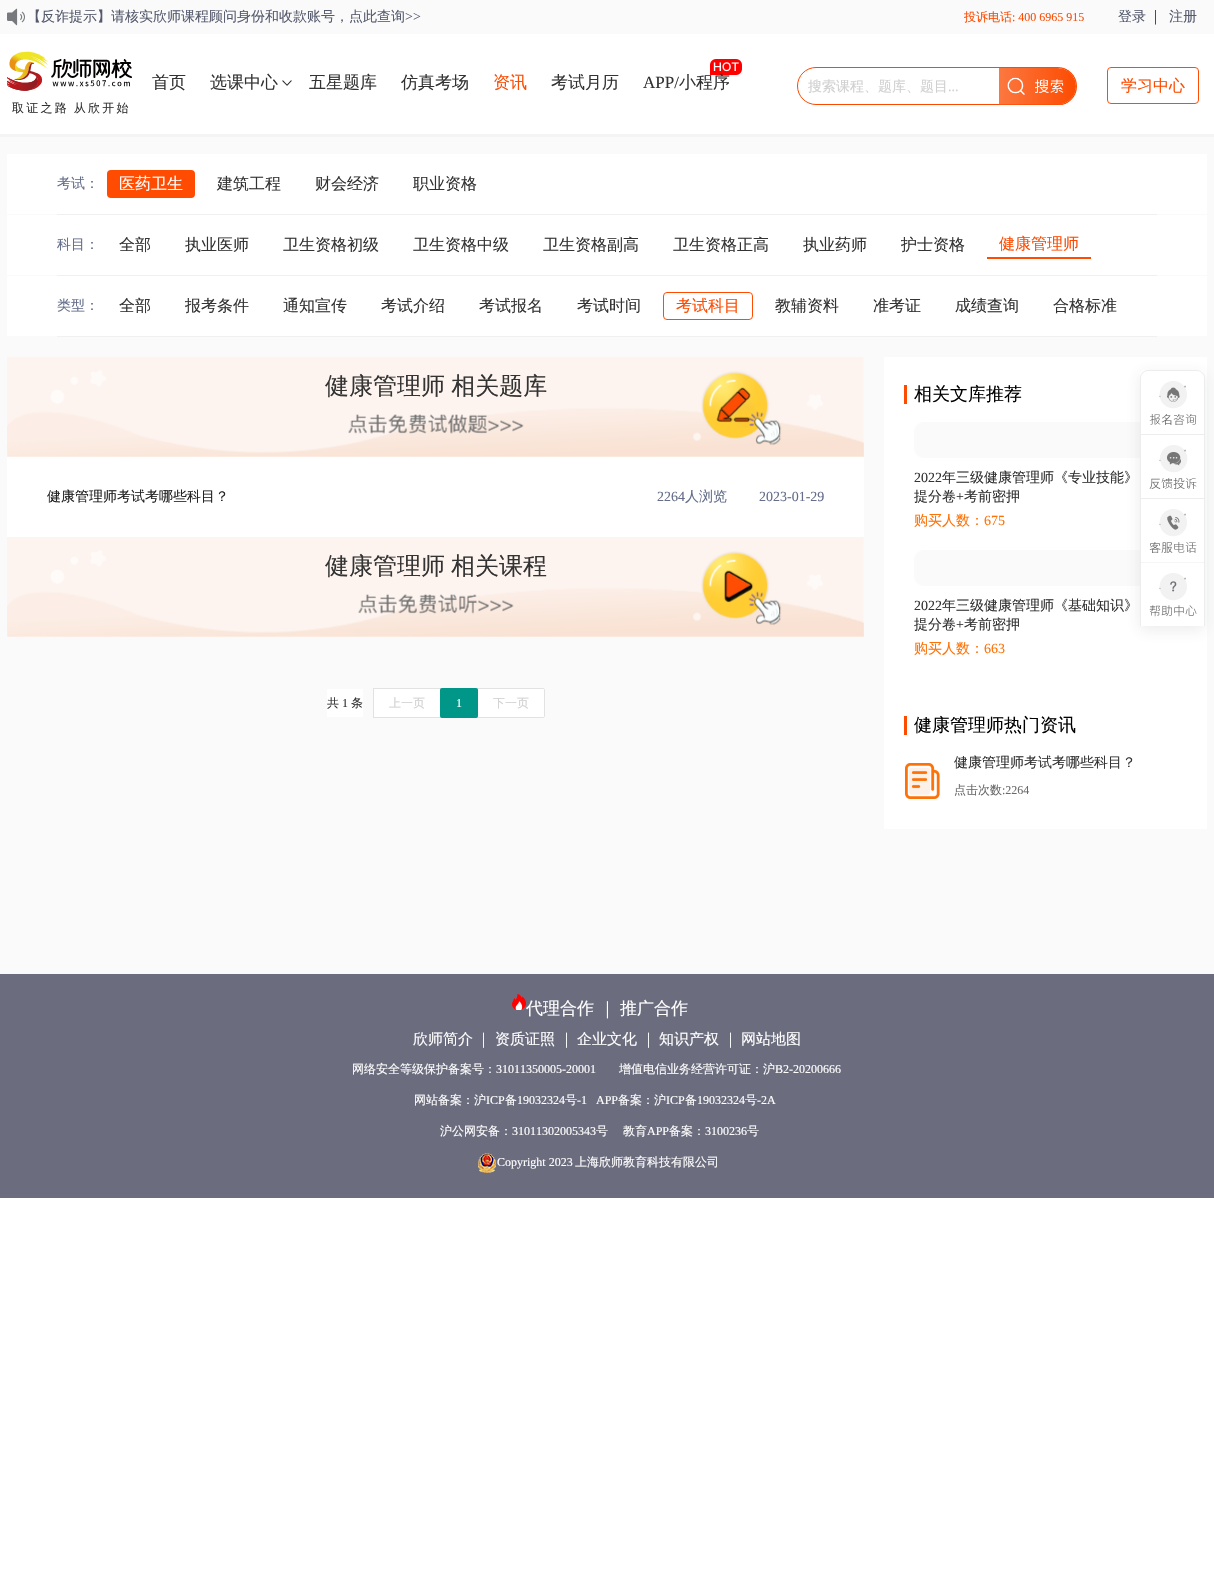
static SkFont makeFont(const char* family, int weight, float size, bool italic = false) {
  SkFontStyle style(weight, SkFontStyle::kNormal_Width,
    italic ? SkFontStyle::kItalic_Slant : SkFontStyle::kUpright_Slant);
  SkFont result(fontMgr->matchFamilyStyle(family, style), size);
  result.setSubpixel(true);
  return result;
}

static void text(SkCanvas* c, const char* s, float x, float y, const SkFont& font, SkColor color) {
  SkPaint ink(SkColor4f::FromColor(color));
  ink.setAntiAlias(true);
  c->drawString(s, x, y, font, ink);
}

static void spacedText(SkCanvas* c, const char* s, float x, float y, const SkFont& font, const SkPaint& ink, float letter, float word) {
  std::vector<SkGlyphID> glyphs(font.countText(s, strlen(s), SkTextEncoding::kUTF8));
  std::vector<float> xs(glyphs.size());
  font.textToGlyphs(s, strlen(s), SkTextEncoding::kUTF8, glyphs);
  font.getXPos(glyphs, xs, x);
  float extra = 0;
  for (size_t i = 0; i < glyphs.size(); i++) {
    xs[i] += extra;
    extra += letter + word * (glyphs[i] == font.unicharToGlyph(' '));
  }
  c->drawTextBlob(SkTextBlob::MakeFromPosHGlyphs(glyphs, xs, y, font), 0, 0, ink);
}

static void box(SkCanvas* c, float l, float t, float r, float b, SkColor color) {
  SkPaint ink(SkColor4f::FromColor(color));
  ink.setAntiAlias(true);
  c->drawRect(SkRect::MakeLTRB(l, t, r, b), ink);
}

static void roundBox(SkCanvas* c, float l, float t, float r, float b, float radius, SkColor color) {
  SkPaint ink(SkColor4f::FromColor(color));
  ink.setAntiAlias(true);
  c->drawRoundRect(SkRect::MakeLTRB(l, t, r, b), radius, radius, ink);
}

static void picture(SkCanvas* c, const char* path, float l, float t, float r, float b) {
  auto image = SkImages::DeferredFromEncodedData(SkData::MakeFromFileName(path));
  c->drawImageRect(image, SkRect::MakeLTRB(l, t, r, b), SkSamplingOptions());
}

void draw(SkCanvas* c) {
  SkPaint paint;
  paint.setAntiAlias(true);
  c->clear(0xffffffff);
  box(c, 0, 0, 1214, 34, 0xfffafafa);
  picture(c, "img_01.png", 7, 8, 25, 26);
  SkFont face1 = makeFont("WenQuanYi Zen Hei", 500, 14);
  text(c, "【反诈提示】请核实欣师课程顾问身份和收款账号，点此查询", 27, 21, face1, 0xff555a6d);
  SkFont face2 = makeFont("Liberation Serif", 400, 14);
  text(c, ">>", 405, 21, face2, 0xff555a6d);
  SkFont face3 = makeFont("WenQuanYi Zen Hei", 500, 12);
  text(c, "投诉电话", 964, 21, face3, 0xfffc4c02);
  SkFont face4 = makeFont("Liberation Serif", 400, 12);
  text(c, ": 400 6965 915", 1012, 21, face4, 0xfffc4c02);
  text(c, "登录", 1118, 21, face1, 0xff555a6d);
  SkFont face5 = makeFont("Liberation Serif", 400, 16);
  text(c, "|", 1154, 21, face5, 0xff333333);
  text(c, "注册", 1169, 21, face1, 0xff555a6d);
  SkFont face6 = makeFont("WenQuanYi Zen Hei", 500, 17);
  text(c, "首页", 152, 88, face6, 0xff333333);
  picture(c, "img_02.png", 282, 80, 292, 86);
  text(c, "选课中心", 210, 88, face6, 0xff333333);
  text(c, "五星题库", 309, 88, face6, 0xff333333);
  text(c, "仿真考场", 401, 88, face6, 0xff333333);
  text(c, "资讯", 493, 88, face6, 0xfffc4c02);
  text(c, "考试月历", 551, 88, face6, 0xff333333);
  picture(c, "img_03.png", 710, 59, 742, 75);
  SkFont face7 = makeFont("Liberation Serif", 400, 17);
  text(c, "APP/", 643, 88, face7, 0xff333333);
  text(c, "小程序", 679, 88, face6, 0xff333333);
  paint.setStyle(SkPaint::kStroke_Style);
  paint.setStrokeWidth(1);
  paint.setColor(0xfffc4800);
  c->drawRoundRect(SkRect::MakeLTRB(797.5f, 67.5f, 1058.5f, 104.5f), 18.5f, 18.5f, paint);
  text(c, "搜索课程、题库、题目", 808, 91, face1, 0xffd0d0d0);
  text(c, "...", 948, 91, face2, 0xffd0d0d0);
  picture(c, "img_04.png", 999, 67, 1077, 105);
  paint.setColor(0xffff4c02);
  c->drawRoundRect(SkRect::MakeLTRB(1107.5f, 67.5f, 1198.5f, 103.5f), 3.5f, 3.5f, paint);
  SkFont face8 = makeFont("WenQuanYi Zen Hei", 500, 16);
  text(c, "学习中心", 1121, 91, face8, 0xfffc4c02);
  picture(c, "img_05.png", 7, 51, 132, 91);
  paint.setStyle(SkPaint::kFill_Style);
  paint.setColor(0xff333333);
  spacedText(c, "取证之路 从欣开始", 12, 112, face3, paint, 2.25f, -1);
  box(c, 0, 137, 1214, 974, 0xfffafafa);
  box(c, 0, 134, 1214, 137, 0xfff4f4f4);
  box(c, 7, 154, 1207, 214, 0xffffffff);
  text(c, "考试：", 57, 188, face1, 0xff646d89);
  roundBox(c, 107, 170, 195, 198, 4, 0xffff4c02);
  text(c, "医药卫生", 119, 189, face8, 0xffffffff);
  text(c, "建筑工程", 217, 189, face8, 0xff333333);
  text(c, "财会经济", 315, 189, face8, 0xff333333);
  text(c, "职业资格", 413, 189, face8, 0xff333333);
  box(c, 57, 214, 1157, 215, 0xfff0f0f0);
  box(c, 7, 215, 1207, 275, 0xffffffff);
  text(c, "科目：", 57, 249, face1, 0xff646d89);
  text(c, "全部", 119, 250, face8, 0xff333333);
  text(c, "执业医师", 185, 250, face8, 0xff333333);
  text(c, "卫生资格初级", 283, 250, face8, 0xff333333);
  text(c, "卫生资格中级", 413, 250, face8, 0xff333333);
  text(c, "卫生资格副高", 543, 250, face8, 0xff333333);
  text(c, "卫生资格正高", 673, 250, face8, 0xff333333);
  text(c, "执业药师", 803, 250, face8, 0xff333333);
  text(c, "护士资格", 901, 250, face8, 0xff333333);
  box(c, 987, 257, 1091, 259, 0xffff4c02);
  text(c, "健康管理师", 999, 249, face8, 0xfffc4c02);
  box(c, 57, 275, 1157, 276, 0xfff0f0f0);
  box(c, 7, 276, 1207, 336, 0xffffffff);
  text(c, "类型：", 57, 310, face1, 0xff646d89);
  text(c, "全部", 119, 311, face8, 0xff333333);
  text(c, "报考条件", 185, 311, face8, 0xff333333);
  text(c, "通知宣传", 283, 311, face8, 0xff333333);
  text(c, "考试介绍", 381, 311, face8, 0xff333333);
  text(c, "考试报名", 479, 311, face8, 0xff333333);
  text(c, "考试时间", 577, 311, face8, 0xff333333);
  paint.setStyle(SkPaint::kStroke_Style);
  paint.setColor(0xffff4c02);
  c->drawRoundRect(SkRect::MakeLTRB(663.5f, 292.5f, 752.5f, 319.5f), 3.5f, 3.5f, paint);
  text(c, "考试科目", 676, 311, face8, 0xfffc4c02);
  text(c, "教辅资料", 775, 311, face8, 0xff333333);
  text(c, "准考证", 873, 311, face8, 0xff333333);
  text(c, "成绩查询", 955, 311, face8, 0xff333333);
  text(c, "合格标准", 1053, 311, face8, 0xff333333);
  box(c, 57, 336, 1157, 337, 0xfff0f0f0);
  picture(c, "img_06.png", 7, 357, 864, 457);
  SkFont face9 = makeFont("WenQuanYi Zen Hei", 500, 24);
  paint.setStyle(SkPaint::kFill_Style);
  paint.setColor(0xff333333);
  spacedText(c, "健康管理师 相关题库", 325, 394, face9, paint, 0, -1);
  box(c, 7, 457, 864, 537, 0xffffffff);
  text(c, "健康管理师考试考哪些科目？", 47, 501, face1, 0xff212121);
  text(c, "2264", 657, 501, face2, 0xff646d89);
  text(c, "人浏览", 685, 501, face1, 0xff646d89);
  text(c, "2023-01-29", 759, 501, face2, 0xff646d89);
  picture(c, "img_07.png", 7, 537, 864, 637);
  text(c, "健康管理师", 325, 574, face9, 0xff333333);
  text(c, "相关课程", 451, 574, face9, 0xff333333);
  box(c, 327, 689, 363, 717, 0xffffffff);
  text(c, "共", 327, 707, face3, 0xff333333);
  text(c, "1", 342, 707, face4, 0xff333333);
  text(c, "条", 351, 707, face3, 0xff333333);
  paint.setColor(0xffffffff);
  c->drawRect(SkRect::MakeLTRB(373.5f, 688.5f, 440.5f, 717.5f), paint);
  paint.setStyle(SkPaint::kStroke_Style);
  paint.setColor(0xffe2e2e2);
  c->drawRect(SkRect::MakeLTRB(373.5f, 688.5f, 440.5f, 717.5f), paint);
  text(c, "上一页", 389, 707, face3, 0xffd0d0d0);
  paint.setStyle(SkPaint::kFill_Style);
  paint.setColor(0xffffffff);
  c->drawPath(SkPathBuilder().moveTo(477.5f, 688.5f).lineTo(543, 688.5f).cubicTo(544, 688.5f, 544.5f, 689, 544.5f, 690).lineTo(544.5f, 716).cubicTo(544.5f, 717, 544, 717.5f, 543, 717.5f).lineTo(477.5f, 717.5f).close().detach(), paint);
  paint.setStyle(SkPaint::kStroke_Style);
  paint.setColor(0xffe2e2e2);
  c->drawPath(SkPathBuilder().moveTo(477.5f, 688.5f).lineTo(543, 688.5f).cubicTo(544, 688.5f, 544.5f, 689, 544.5f, 690).lineTo(544.5f, 716).cubicTo(544.5f, 717, 544, 717.5f, 543, 717.5f).lineTo(477.5f, 717.5f).close().detach(), paint);
  c->drawRect(SkRect::MakeLTRB(440.5f, 688.5f, 477.5f, 717.5f), paint);
  roundBox(c, 440, 688, 478, 718, 2, 0xff009688);
  text(c, "1", 456, 707, face4, 0xffffffff);
  text(c, "下一页", 493, 707, face3, 0xffd0d0d0);
  box(c, 884, 357, 1207, 829, 0xffffffff);
  box(c, 904, 385, 907, 404, 0xfffc4c02);
  SkFont face10 = makeFont("WenQuanYi Zen Hei", 500, 18);
  text(c, "相关文库推荐", 914, 400, face10, 0xff000000);
  roundBox(c, 914, 422, 1177, 458, 10, 0xfffafafa);
  text(c, "2022", 914, 482, face2, 0xff333333);
  text(c, "年三级健康管理师《专业技能》", 942, 482, face1, 0xff333333);
  text(c, "提分卷", 914, 501, face1, 0xff333333);
  text(c, "+", 956, 501, face2, 0xff333333);
  text(c, "考前密押", 964, 501, face1, 0xff333333);
  text(c, "购买人数：", 914, 525, face1, 0xfffc7208);
  text(c, "675", 984, 525, face2, 0xfffc7208);
  roundBox(c, 914, 550, 1177, 586, 10, 0xfffafafa);
  text(c, "2022", 914, 610, face2, 0xff333333);
  text(c, "年三级健康管理师《基础知识》", 942, 610, face1, 0xff333333);
  text(c, "提分卷", 914, 629, face1, 0xff333333);
  text(c, "+", 956, 629, face2, 0xff333333);
  text(c, "考前密押", 964, 629, face1, 0xff333333);
  text(c, "购买人数：", 914, 653, face1, 0xfffc7208);
  text(c, "663", 984, 653, face2, 0xfffc7208);
  box(c, 904, 716, 907, 735, 0xfffc4c02);
  text(c, "健康管理师热门资讯", 914, 731, face10, 0xff000000);
  picture(c, "img_08.png", 905, 763, 940, 799);
  text(c, "健康管理师考试考哪些科目？", 954, 767, face1, 0xff333333);
  text(c, "点击次数", 954, 794, face3, 0xff696969);
  text(c, ":2264", 1002, 794, face4, 0xff696969);
  paint.setStyle(SkPaint::kFill_Style);
  paint.setColor(0x1a343c45);
  paint.setMaskFilter(SkMaskFilter::MakeBlur(kNormal_SkBlurStyle, 7.5f));
  c->drawRoundRect(SkRect::MakeLTRB(1140, 374, 1204, 630), 4, 4, paint);
  paint.setMaskFilter(nullptr);
  roundBox(c, 1140, 370, 1204, 626, 4, 0xffffffff);
  picture(c, "img_09.png", 1140, 370, 1205, 434);
  picture(c, "img_10.png", 1140, 434, 1205, 498);
  picture(c, "img_11.png", 1140, 498, 1205, 562);
  picture(c, "img_12.png", 1140, 562, 1205, 626);
  box(c, 0, 974, 1214, 1198, 0xff6b6d7e);
  picture(c, "img_13.png", 512, 994, 526, 1010);
  text(c, "代理合作", 526, 1014, face6, 0xffffffff);
  text(c, "｜", 599, 1014, face6, 0xffffffff);
  text(c, "推广合作", 620, 1014, face6, 0xffffffff);
  SkFont face11 = makeFont("WenQuanYi Zen Hei", 500, 15);
  text(c, "欣师简介", 413, 1044, face11, 0xffffffff);
  text(c, "｜", 476, 1044, face11, 0xffffffff);
  text(c, "资质证照", 495, 1044, face11, 0xffffffff);
  text(c, "｜", 559, 1044, face11, 0xffffffff);
  text(c, "企业文化", 577, 1044, face11, 0xffffffff);
  text(c, "｜", 641, 1044, face11, 0xffffffff);
  text(c, "知识产权", 659, 1044, face11, 0xffffffff);
  text(c, "｜", 723, 1044, face11, 0xffffffff);
  text(c, "网站地图", 741, 1044, face11, 0xffffffff);
  text(c, "网络安全等级保护备案号：", 352, 1073, face3, 0xffffffff);
  text(c, "31011350005-20001", 496, 1073, face4, 0xffffffff);
  text(c, "增值电信业务经营许可证：沪", 619, 1073, face3, 0xffffffff);
  text(c, "B2-20200666", 775, 1073, face4, 0xffffffff);
  text(c, "网站备案：沪", 414, 1104, face3, 0xffffffff);
  text(c, "ICP", 486, 1104, face4, 0xffffffff);
  text(c, "备", 505, 1104, face3, 0xffffffff);
  text(c, "19032324", 517, 1104, face4, 0xffffffff);
  text(c, "号", 565, 1104, face3, 0xffffffff);
  text(c, "-1   APP", 577, 1104, face4, 0xffffffff);
  text(c, "备案：沪", 618, 1104, face3, 0xffffffff);
  text(c, "ICP", 666, 1104, face4, 0xffffffff);
  text(c, "备", 685, 1104, face3, 0xffffffff);
  text(c, "19032324", 697, 1104, face4, 0xffffffff);
  text(c, "号", 745, 1104, face3, 0xffffffff);
  text(c, "-2A", 757, 1104, face4, 0xffffffff);
  text(c, "沪公网安备：", 440, 1135, face3, 0xffffffff);
  text(c, "31011302005343", 512, 1135, face4, 0xffffffff);
  text(c, "号", 596, 1135, face3, 0xffffffff);
  text(c, "教育", 623, 1135, face3, 0xffffffff);
  text(c, "APP", 647, 1135, face4, 0xffffffff);
  text(c, "备案：", 669, 1135, face3, 0xffffffff);
  text(c, "3100236", 705, 1135, face4, 0xffffffff);
  text(c, "号", 747, 1135, face3, 0xffffffff);
  picture(c, "img_14.png", 478, 1153, 496, 1173);
  text(c, "Copyright 2023", 497, 1166, face4, 0xffffffff);
  text(c, "上海欣师教育科技有限公司", 575, 1166, face3, 0xffffffff);
}
